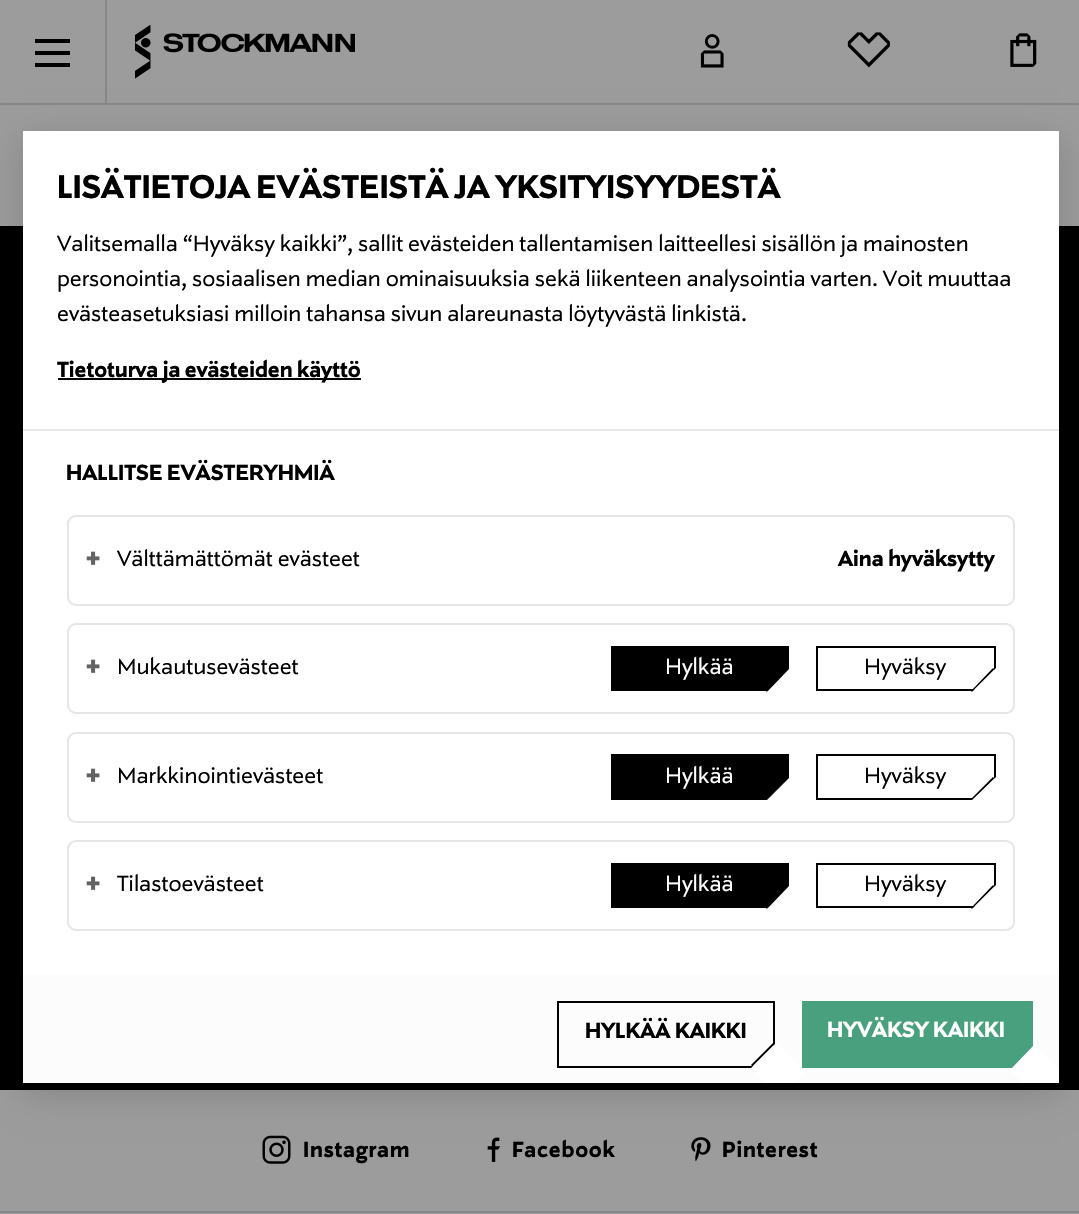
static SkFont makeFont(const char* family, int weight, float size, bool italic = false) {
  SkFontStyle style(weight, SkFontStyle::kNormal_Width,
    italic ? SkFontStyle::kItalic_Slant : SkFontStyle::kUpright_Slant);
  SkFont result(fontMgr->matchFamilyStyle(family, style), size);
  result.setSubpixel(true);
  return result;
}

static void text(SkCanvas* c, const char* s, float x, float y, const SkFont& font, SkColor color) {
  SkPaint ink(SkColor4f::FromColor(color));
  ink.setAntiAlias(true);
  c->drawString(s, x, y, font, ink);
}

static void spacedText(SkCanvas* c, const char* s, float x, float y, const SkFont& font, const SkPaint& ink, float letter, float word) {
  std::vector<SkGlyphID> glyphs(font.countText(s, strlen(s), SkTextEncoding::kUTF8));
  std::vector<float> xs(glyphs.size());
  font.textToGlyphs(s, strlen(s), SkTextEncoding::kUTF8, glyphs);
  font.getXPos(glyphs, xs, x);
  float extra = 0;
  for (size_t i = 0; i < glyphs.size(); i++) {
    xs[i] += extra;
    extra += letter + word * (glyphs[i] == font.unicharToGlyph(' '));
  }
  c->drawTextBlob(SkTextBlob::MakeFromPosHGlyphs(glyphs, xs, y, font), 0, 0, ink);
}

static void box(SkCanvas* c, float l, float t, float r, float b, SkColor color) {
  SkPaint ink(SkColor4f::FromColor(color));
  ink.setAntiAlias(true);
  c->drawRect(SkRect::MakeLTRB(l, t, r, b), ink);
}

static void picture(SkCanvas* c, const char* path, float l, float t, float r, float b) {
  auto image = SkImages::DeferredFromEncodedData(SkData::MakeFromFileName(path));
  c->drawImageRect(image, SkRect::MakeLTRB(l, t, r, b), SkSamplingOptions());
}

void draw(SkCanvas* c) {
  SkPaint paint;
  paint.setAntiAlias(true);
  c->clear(0xff9c9c9c);
  box(c, 0, 103, 1079, 105, 0xff85888a);
  box(c, 105, 0, 107, 103, 0xff85888a);
  box(c, 0, 226, 1079, 1090, 0xff000000);
  picture(c, "img_05.png", 262, 1135, 291, 1164);
  picture(c, "img_06.png", 487, 1137, 501, 1162);
  picture(c, "img_07.png", 691, 1137, 711, 1162);
  paint.setColor(0x29000000);
  paint.setMaskFilter(SkMaskFilter::MakeBlur(kNormal_SkBlurStyle, 17.5f));
  c->drawRect(SkRect::MakeLTRB(23, 140, 1059, 1092), paint);
  paint.setMaskFilter(nullptr);
  box(c, 23, 131, 1059, 975, 0xffffffff);
  box(c, 23, 429, 1059, 431, 0xffe8e8e8);
  SkFont face1 = makeFont("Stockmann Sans", 700, 36.75f);
  paint.setColor(0xff000000);
  spacedText(c, "LISÄTIETOJA EVÄSTEISTÄ JA YKSITYISYYDESTÄ", 57, 198, face1, paint, 0, -0.5f);
  SkFont face2 = makeFont("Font", 400, 24.5f);
  text(c, "Valitsemalla “Hyväksy kaikki”, sallit evästeiden tallentamisen laitteellesi sisällön ja mainosten", 57, 251, face2, 0xff000000);
  text(c, "personointia, sosiaalisen median ominaisuuksia sekä liikenteen analysointia varten. Voit muuttaa", 57, 286, face2, 0xff000000);
  text(c, "evästeasetuksiasi milloin tahansa sivun alareunasta löytyvästä linkistä.", 57, 321, face2, 0xff000000);
  box(c, 58, 378, 361, 380, 0xff000000);
  SkFont face3 = makeFont("Stockmann Sans", 700, 24.5f);
  text(c, "Tietoturva ja evästeiden käyttö", 57, 377, face3, 0xff000000);
  text(c, "HALLITSE EVÄSTERYHMIÄ", 66, 480, face3, 0xff000000);
  paint.setStyle(SkPaint::kStroke_Style);
  paint.setStrokeWidth(2);
  paint.setColor(0xffe6e6e6);
  c->drawRoundRect(SkRect::MakeLTRB(68, 516, 1014, 605), 8, 8, paint);
  SkFont face4 = makeFont("Stockmann Sans", 700, 32);
  text(c, "+", 85, 568, face4, 0xff626262);
  text(c, "Välttämättömät evästeet", 117, 566, face2, 0xff000000);
  text(c, "Aina hyväksytty", 838, 566, face3, 0xff000000);
  c->drawRoundRect(SkRect::MakeLTRB(68, 624, 1014, 713), 8, 8, paint);
  text(c, "+", 85, 676, face4, 0xff626262);
  text(c, "Mukautusevästeet", 117, 674, face2, 0xff000000);
  box(c, 611, 646, 789, 691, 0xff000000);
  text(c, "Hylkää", 665, 674, face2, 0xffffffff);
  paint.setStyle(SkPaint::kFill_Style);
  paint.setColor(0xff000000);
  c->drawPath(SkPathBuilder().moveTo(788, 668).lineTo(766, 691).lineTo(767, 692).lineTo(789.5f, 669.5f).close().detach(), paint);
  c->save();
  c->clipRect(SkRect::MakeLTRB(611, 634, 996, 704));
  paint.setColor(0xffffffff);
  c->drawPath(SkPathBuilder().moveTo(790, 668).lineTo(820, 698).lineTo(795, 723).lineTo(766, 693).close().detach(), paint);
  c->restore();
  paint.setStyle(SkPaint::kStroke_Style);
  paint.setColor(0xff000000);
  c->drawRect(SkRect::MakeLTRB(817, 647, 995, 690), paint);
  text(c, "Hyväksy", 864, 674, face2, 0xff000000);
  paint.setStyle(SkPaint::kFill_Style);
  c->drawPath(SkPathBuilder().moveTo(993, 668).lineTo(971, 691).lineTo(972, 692).lineTo(994.5f, 669.5f).close().detach(), paint);
  c->save();
  c->clipRect(SkRect::MakeLTRB(611, 634, 996, 704));
  paint.setColor(0xffffffff);
  c->drawPath(SkPathBuilder().moveTo(996, 668).lineTo(1026, 698).lineTo(1001, 723).lineTo(971, 693).close().detach(), paint);
  c->restore();
  paint.setStyle(SkPaint::kStroke_Style);
  paint.setColor(0xffe6e6e6);
  c->drawRoundRect(SkRect::MakeLTRB(68, 733, 1014, 822), 8, 8, paint);
  text(c, "+", 85, 785, face4, 0xff626262);
  text(c, "Markkinointievästeet", 117, 783, face2, 0xff000000);
  box(c, 611, 754, 789, 800, 0xff000000);
  text(c, "Hylkää", 665, 783, face2, 0xffffffff);
  c->save();
  c->clipRect(SkRect::MakeLTRB(611, 742, 996, 812));
  paint.setStyle(SkPaint::kFill_Style);
  paint.setColor(0xffffffff);
  c->drawPath(SkPathBuilder().moveTo(790, 777).lineTo(820, 806).lineTo(795, 831).lineTo(766, 801).close().detach(), paint);
  c->restore();
  paint.setStyle(SkPaint::kStroke_Style);
  paint.setColor(0xff000000);
  c->drawRect(SkRect::MakeLTRB(817, 755, 995, 799), paint);
  text(c, "Hyväksy", 864, 783, face2, 0xff000000);
  paint.setStyle(SkPaint::kFill_Style);
  c->drawPath(SkPathBuilder().moveTo(993, 777).lineTo(971, 799).lineTo(972.5f, 800.5f).lineTo(994.5f, 778.5f).close().detach(), paint);
  c->save();
  c->clipRect(SkRect::MakeLTRB(611, 742, 996, 812));
  paint.setColor(0xffffffff);
  c->drawPath(SkPathBuilder().moveTo(996, 777).lineTo(1026, 806).lineTo(1001, 831).lineTo(971, 801).close().detach(), paint);
  c->restore();
  paint.setStyle(SkPaint::kStroke_Style);
  paint.setColor(0xffe6e6e6);
  c->drawRoundRect(SkRect::MakeLTRB(68, 841, 1014, 930), 8, 8, paint);
  text(c, "+", 85, 893, face4, 0xff626262);
  text(c, "Tilastoevästeet", 117, 891, face2, 0xff000000);
  box(c, 611, 863, 789, 908, 0xff000000);
  text(c, "Hylkää", 665, 891, face2, 0xffffffff);
  paint.setStyle(SkPaint::kFill_Style);
  paint.setColor(0xff000000);
  c->drawPath(SkPathBuilder().moveTo(788, 885).lineTo(766, 908).lineTo(767, 909).lineTo(789.5f, 886.5f).close().detach(), paint);
  c->save();
  c->clipRect(SkRect::MakeLTRB(611, 851, 996, 921));
  paint.setColor(0xffffffff);
  c->drawPath(SkPathBuilder().moveTo(790, 885).lineTo(820, 915).lineTo(795, 940).lineTo(766, 910).close().detach(), paint);
  c->restore();
  paint.setStyle(SkPaint::kStroke_Style);
  paint.setColor(0xff000000);
  c->drawRect(SkRect::MakeLTRB(817, 864, 995, 907), paint);
  text(c, "Hyväksy", 864, 891, face2, 0xff000000);
  paint.setStyle(SkPaint::kFill_Style);
  c->drawPath(SkPathBuilder().moveTo(993, 885).lineTo(971, 908).lineTo(972, 909).lineTo(994.5f, 886.5f).close().detach(), paint);
  c->save();
  c->clipRect(SkRect::MakeLTRB(611, 851, 996, 921));
  paint.setColor(0xffffffff);
  c->drawPath(SkPathBuilder().moveTo(996, 885).lineTo(1026, 915).lineTo(1001, 940).lineTo(971, 910).close().detach(), paint);
  c->restore();
  box(c, 23, 975, 1059, 1083, 0xfffcfcfc);
  paint.setStyle(SkPaint::kStroke_Style);
  paint.setColor(0xff000000);
  c->drawRect(SkRect::MakeLTRB(558, 1002, 774, 1067), paint);
  text(c, "HYLKÄÄ KAIKKI", 585, 1038, face3, 0xff000000);
  paint.setStyle(SkPaint::kFill_Style);
  c->drawPath(SkPathBuilder().moveTo(773, 1043).lineTo(751, 1065).lineTo(752.5f, 1066.5f).lineTo(774.5f, 1044.5f).close().detach(), paint);
  c->save();
  c->clipRect(SkRect::MakeLTRB(23, 975, 1059, 1083));
  paint.setColor(0xffffffff);
  c->drawPath(SkPathBuilder().moveTo(776, 1043).lineTo(806, 1073).lineTo(781, 1098).lineTo(751, 1068).close().detach(), paint);
  c->restore();
  box(c, 802, 1001, 1033, 1068, 0xff48a07e);
  text(c, "HYVÄKSY KAIKKI", 827, 1037, face3, 0xffffffff);
  c->save();
  c->clipRect(SkRect::MakeLTRB(23, 975, 1059, 1083));
  c->drawPath(SkPathBuilder().moveTo(1034, 1045).lineTo(1064, 1075).lineTo(1039, 1099).lineTo(1010, 1070).close().detach(), paint);
  c->restore();
  box(c, 35, 39, 70, 43, 0xff000000);
  box(c, 35, 51, 70, 55, 0xff000000);
  box(c, 35, 63, 70, 67, 0xff000000);
  picture(c, "img_01.png", 135, 25, 355, 79);
  picture(c, "img_02.png", 700, 34, 724, 68);
  picture(c, "img_03.png", 847, 32, 890, 68);
  picture(c, "img_04.png", 1010, 33, 1037, 67);
  box(c, 0, 1211, 1079, 1213, 0xff85888a);
  paint.setColor(0xff000000);
  spacedText(c, "Instagram", 303, 1157, face3, paint, 0.75f, 0);
  spacedText(c, "Facebook", 512, 1157, face3, paint, 0.75f, 0);
  spacedText(c, "Pinterest", 722, 1157, face3, paint, 0.75f, 0);
}
